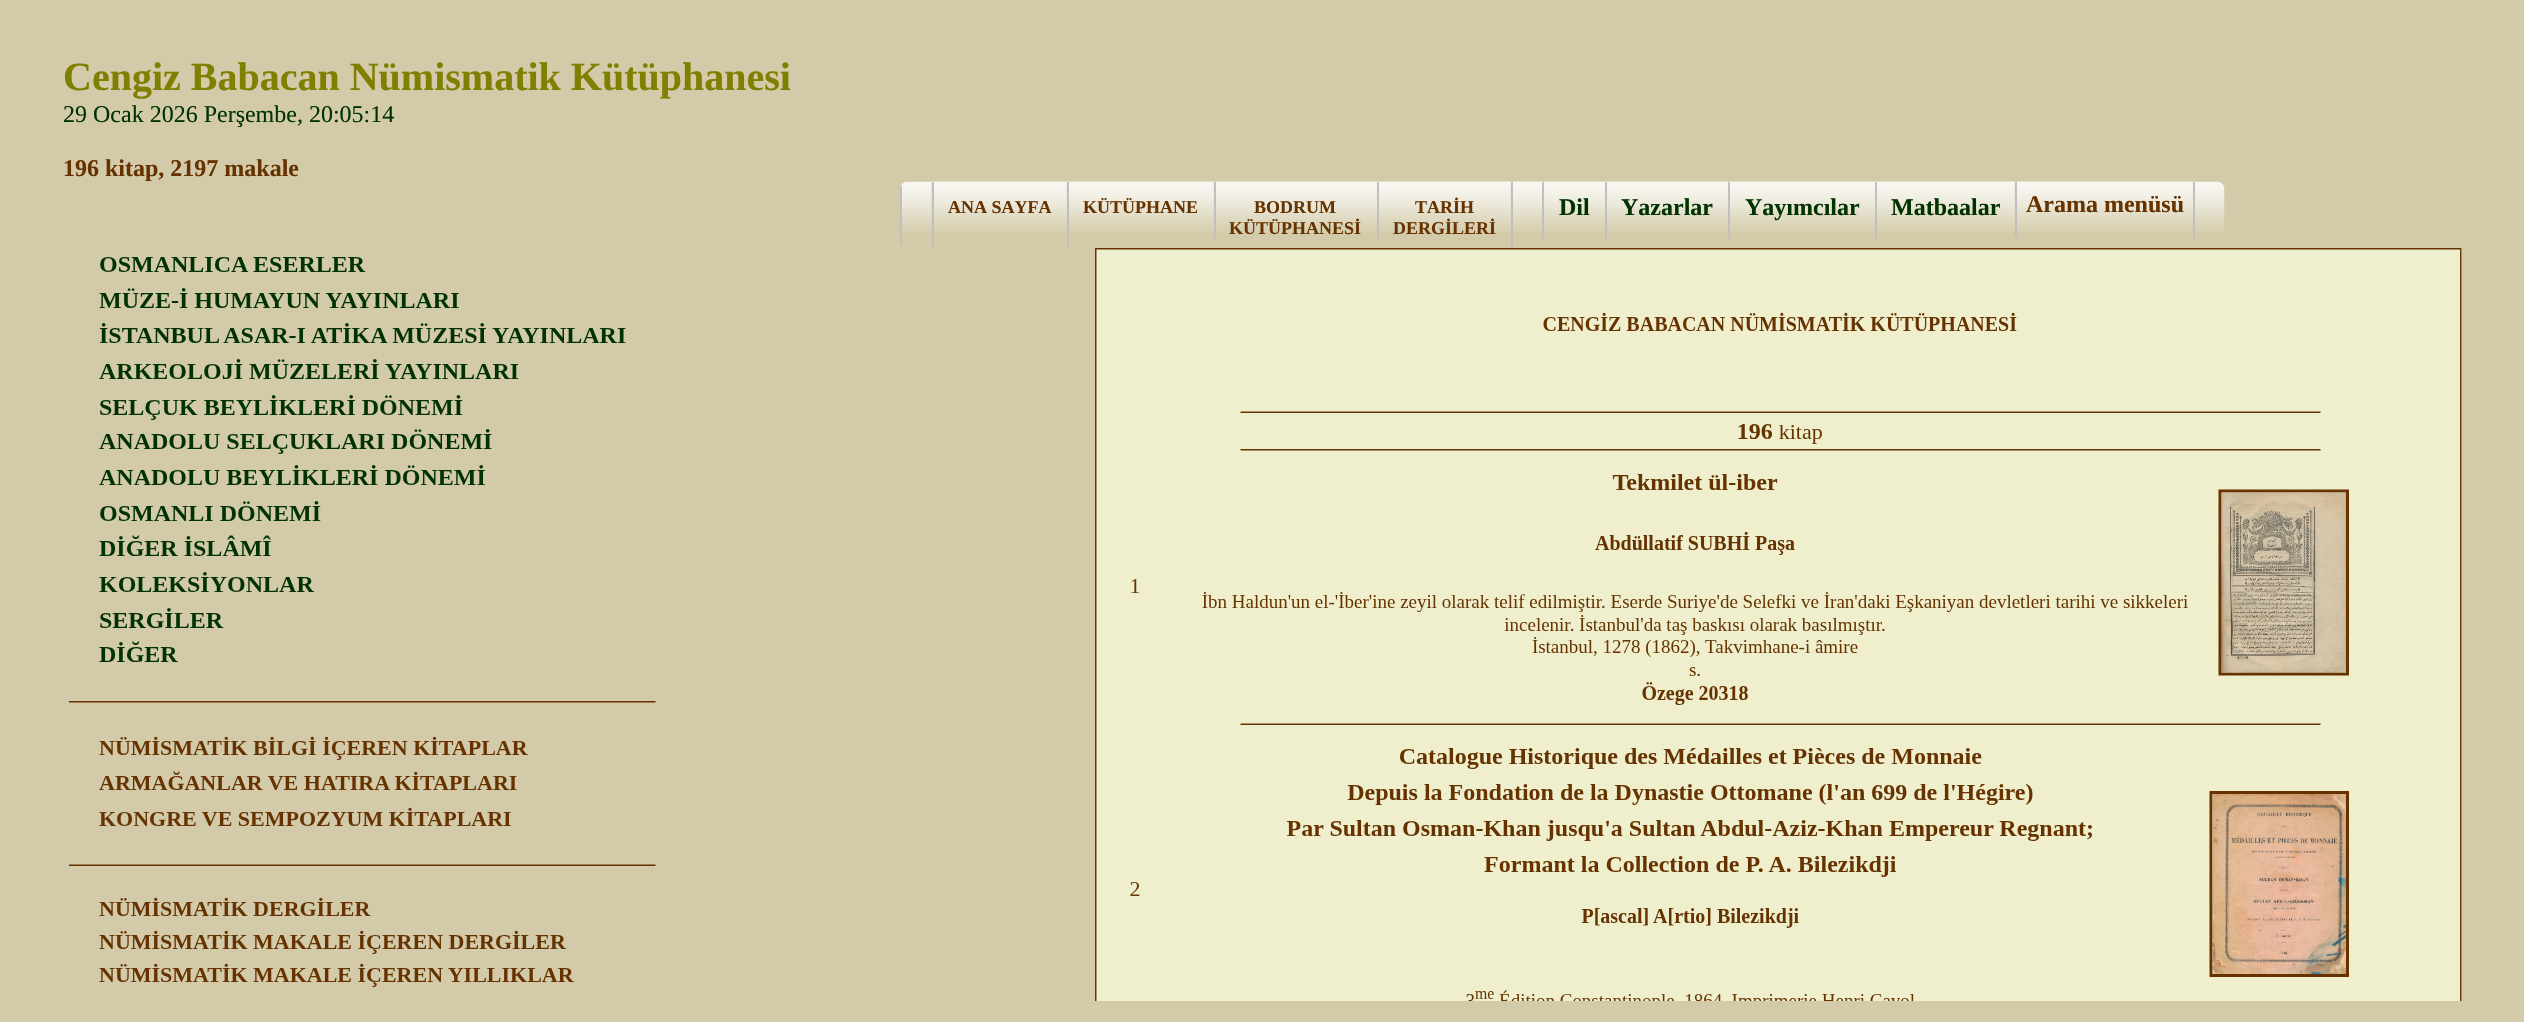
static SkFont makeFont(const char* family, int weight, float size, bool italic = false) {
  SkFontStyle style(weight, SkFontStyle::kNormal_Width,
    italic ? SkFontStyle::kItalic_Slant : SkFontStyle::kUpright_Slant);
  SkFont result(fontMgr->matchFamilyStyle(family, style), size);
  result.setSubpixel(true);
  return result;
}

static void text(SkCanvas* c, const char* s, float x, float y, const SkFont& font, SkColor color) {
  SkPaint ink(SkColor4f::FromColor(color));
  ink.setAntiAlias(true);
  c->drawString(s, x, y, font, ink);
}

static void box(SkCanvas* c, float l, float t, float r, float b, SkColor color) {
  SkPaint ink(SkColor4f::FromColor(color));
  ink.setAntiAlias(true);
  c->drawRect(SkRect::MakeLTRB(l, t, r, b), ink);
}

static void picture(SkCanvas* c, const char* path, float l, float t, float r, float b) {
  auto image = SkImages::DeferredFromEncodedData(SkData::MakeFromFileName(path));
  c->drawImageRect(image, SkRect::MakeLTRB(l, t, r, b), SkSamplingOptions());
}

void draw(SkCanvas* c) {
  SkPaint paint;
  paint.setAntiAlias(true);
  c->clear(0xffd3caa9);
  SkFont face1 = makeFont("Liberation Serif", 700, 40);
  text(c, "Cengiz Babacan Nümismatik Kütüphanesi", 63, 90, face1, 0xff808000);
  SkFont face2 = makeFont("Liberation Serif", 400, 24);
  text(c, "29 Ocak 2026 Perşembe, 20:05:14", 63, 122, face2, 0xff003300);
  SkFont face3 = makeFont("Liberation Serif", 700, 24);
  text(c, "196 kitap, 2197 makale", 63, 176, face3, 0xff663300);
  picture(c, "img_01.png", 900, 181, 932, 233);
  box(c, 900, 186, 902, 245, 0xffc0c0c0);
  picture(c, "img_02.png", 931, 181, 1067, 233);
  box(c, 932, 182, 934, 248, 0xffc0c0c0);
  SkFont face4 = makeFont("Liberation Serif", 700, 18);
  text(c, "ANA SAYFA", 948, 213, face4, 0xff663300);
  picture(c, "img_03.png", 1066, 181, 1214, 233);
  box(c, 1067, 182, 1069, 248, 0xffc0c0c0);
  text(c, "KÜTÜPHANE", 1083, 213, face4, 0xff663300);
  picture(c, "img_04.png", 1213, 181, 1377, 233);
  box(c, 1214, 182, 1216, 239, 0xffc0c0c0);
  text(c, "BODRUM", 1254, 213, face4, 0xff663300);
  text(c, "KÜTÜPHANESİ", 1229, 234, face4, 0xff663300);
  picture(c, "img_05.png", 1377, 181, 1511, 233);
  box(c, 1377, 182, 1379, 239, 0xffc0c0c0);
  text(c, "TARİH", 1415, 213, face4, 0xff663300);
  text(c, "DERGİLERİ", 1393, 234, face4, 0xff663300);
  picture(c, "img_06.png", 1510, 181, 1542, 233);
  box(c, 1511, 182, 1513, 248, 0xffc0c0c0);
  picture(c, "img_07.png", 1542, 181, 1605, 233);
  box(c, 1542, 182, 1544, 239, 0xffc0c0c0);
  text(c, "Dil", 1559, 215, face3, 0xff003300);
  picture(c, "img_08.png", 1605, 181, 1728, 233);
  box(c, 1605, 182, 1607, 239, 0xffc0c0c0);
  text(c, "Yazarlar", 1621, 215, face3, 0xff003300);
  picture(c, "img_09.png", 1728, 181, 1875, 233);
  box(c, 1728, 182, 1730, 239, 0xffc0c0c0);
  text(c, "Yayımcılar", 1745, 215, face3, 0xff003300);
  picture(c, "img_10.png", 1875, 181, 2015, 233);
  box(c, 1875, 182, 1877, 239, 0xffc0c0c0);
  text(c, "Matbaalar", 1891, 215, face3, 0xff003300);
  picture(c, "img_11.png", 2014, 181, 2193, 233);
  box(c, 2015, 182, 2017, 236, 0xffc0c0c0);
  text(c, "Arama menüsü", 2026, 212, face3, 0xff663300);
  picture(c, "img_12.png", 2193, 181, 2225, 233);
  box(c, 2193, 182, 2195, 239, 0xffc0c0c0);
  picture(c, "img_13.png", 69, 257, 656, 987);
  picture(c, "img_14.png", 1095, 248, 2462, 1001);
}
